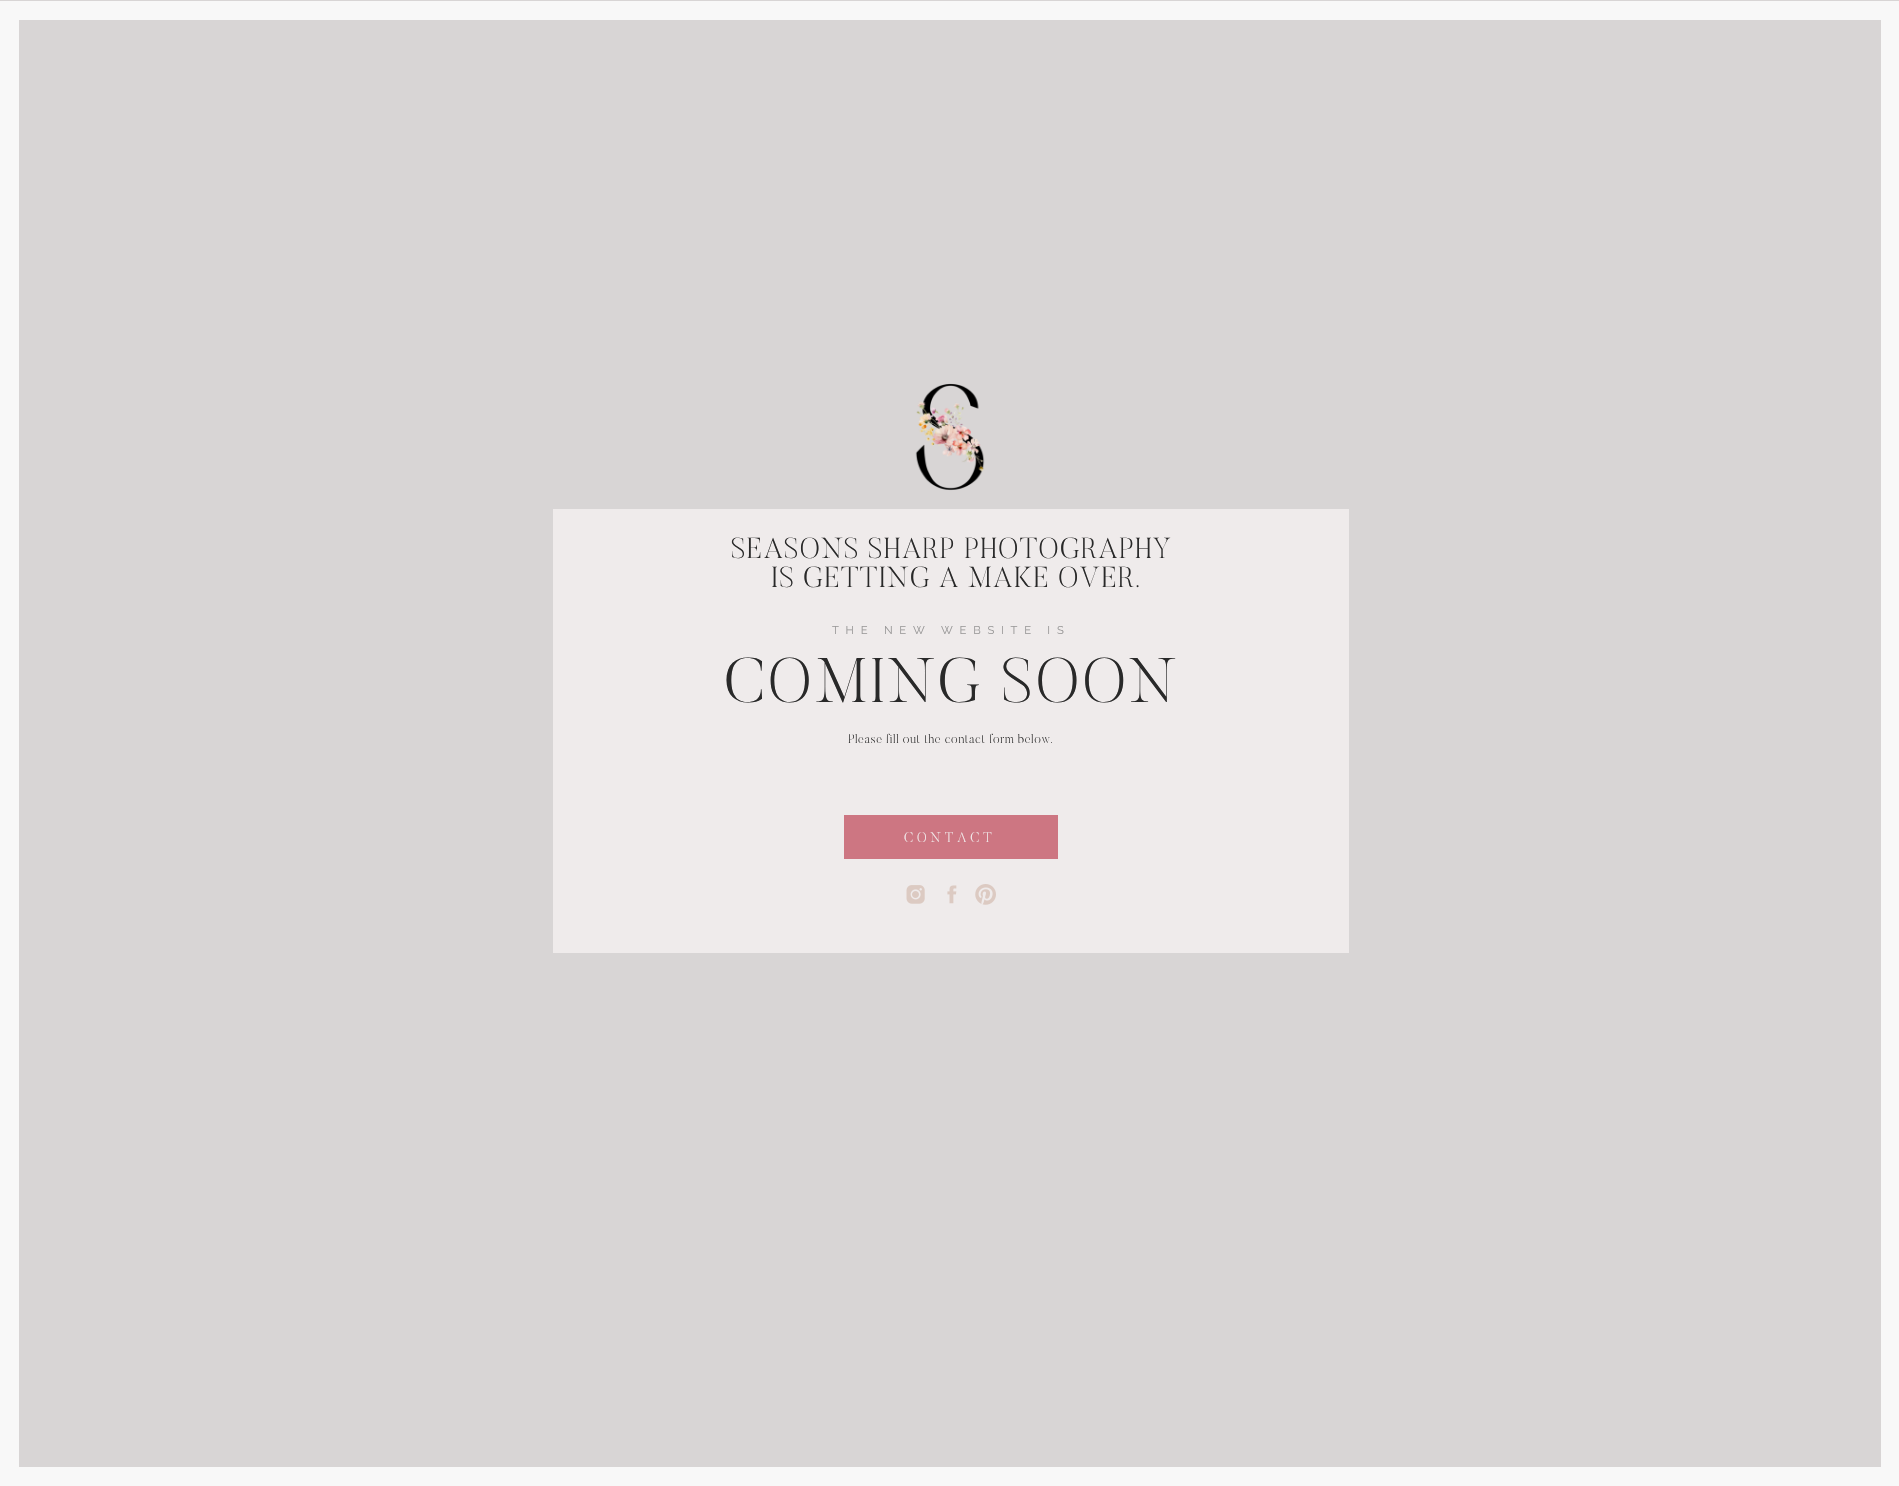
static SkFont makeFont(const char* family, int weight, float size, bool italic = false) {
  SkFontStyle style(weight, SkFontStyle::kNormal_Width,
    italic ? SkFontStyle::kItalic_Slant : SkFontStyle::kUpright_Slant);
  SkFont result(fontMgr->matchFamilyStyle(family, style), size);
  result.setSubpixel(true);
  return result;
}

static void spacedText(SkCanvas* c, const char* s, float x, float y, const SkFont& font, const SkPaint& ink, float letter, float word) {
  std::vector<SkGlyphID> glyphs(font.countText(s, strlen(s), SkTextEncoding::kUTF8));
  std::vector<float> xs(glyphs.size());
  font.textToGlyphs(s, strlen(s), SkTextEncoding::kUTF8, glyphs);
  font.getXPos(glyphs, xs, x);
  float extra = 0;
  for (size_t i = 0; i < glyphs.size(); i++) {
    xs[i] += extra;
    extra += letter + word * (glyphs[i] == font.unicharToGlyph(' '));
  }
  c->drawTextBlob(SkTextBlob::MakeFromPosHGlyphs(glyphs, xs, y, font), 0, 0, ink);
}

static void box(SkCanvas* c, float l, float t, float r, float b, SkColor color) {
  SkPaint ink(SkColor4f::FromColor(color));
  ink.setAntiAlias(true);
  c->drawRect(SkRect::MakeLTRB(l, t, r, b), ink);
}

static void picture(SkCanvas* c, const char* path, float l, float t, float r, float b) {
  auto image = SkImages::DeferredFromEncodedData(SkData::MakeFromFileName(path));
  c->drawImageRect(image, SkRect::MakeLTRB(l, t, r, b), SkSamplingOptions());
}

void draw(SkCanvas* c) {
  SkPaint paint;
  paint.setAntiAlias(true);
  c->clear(0xffd8d5d5);
  paint.setStyle(SkPaint::kStroke_Style);
  paint.setStrokeWidth(19);
  paint.setColor(0xfff8f8f8);
  c->drawRect(SkRect::MakeLTRB(9.5f, 10.5f, 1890.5f, 1476.5f), paint);
  picture(c, "img_01.png", 915, 383, 985, 491);
  box(c, 553, 509, 1349, 953, 0xffefebeb);
  SkFont face1 = makeFont("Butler", 200, 28.75f);
  paint.setStyle(SkPaint::kFill_Style);
  paint.setColor(0xff292929);
  spacedText(c, "SEASONS SHARP PHOTOGRAPHY", 731, 558, face1, paint, 1.4f, 0);
  spacedText(c, "IS GETTING A MAKE OVER.", 771, 587, face1, paint, 1.4f, 0);
  SkFont face2 = makeFont("Raleway", 100, 11.25f);
  paint.setColor(0xff9a9999);
  spacedText(c, "THE NEW WEBSITE IS", 832, 634, face2, paint, 6.75f, 0);
  SkFont face3 = makeFont("Butler", 200, 62.5f);
  paint.setColor(0xff292929);
  spacedText(c, "COMING SOON", 724, 702, face3, paint, 3.1f, 0);
  SkFont face4 = makeFont("Butler", 200, 12.5f);
  spacedText(c, "Please fill out the contact form below.", 848, 743, face4, paint, 0.6f, 0);
  box(c, 844, 815, 1058, 859, 0xffcd7682);
  SkFont face5 = makeFont("Butler", 200, 13.75f);
  paint.setColor(0xfff2eded);
  spacedText(c, "CONTACT", 904, 842, face5, paint, 4, 0);
  picture(c, "img_02.png", 906, 885, 925, 904);
  picture(c, "img_03.png", 947, 885, 957, 904);
  picture(c, "img_04.png", 975, 884, 996, 905);
}
